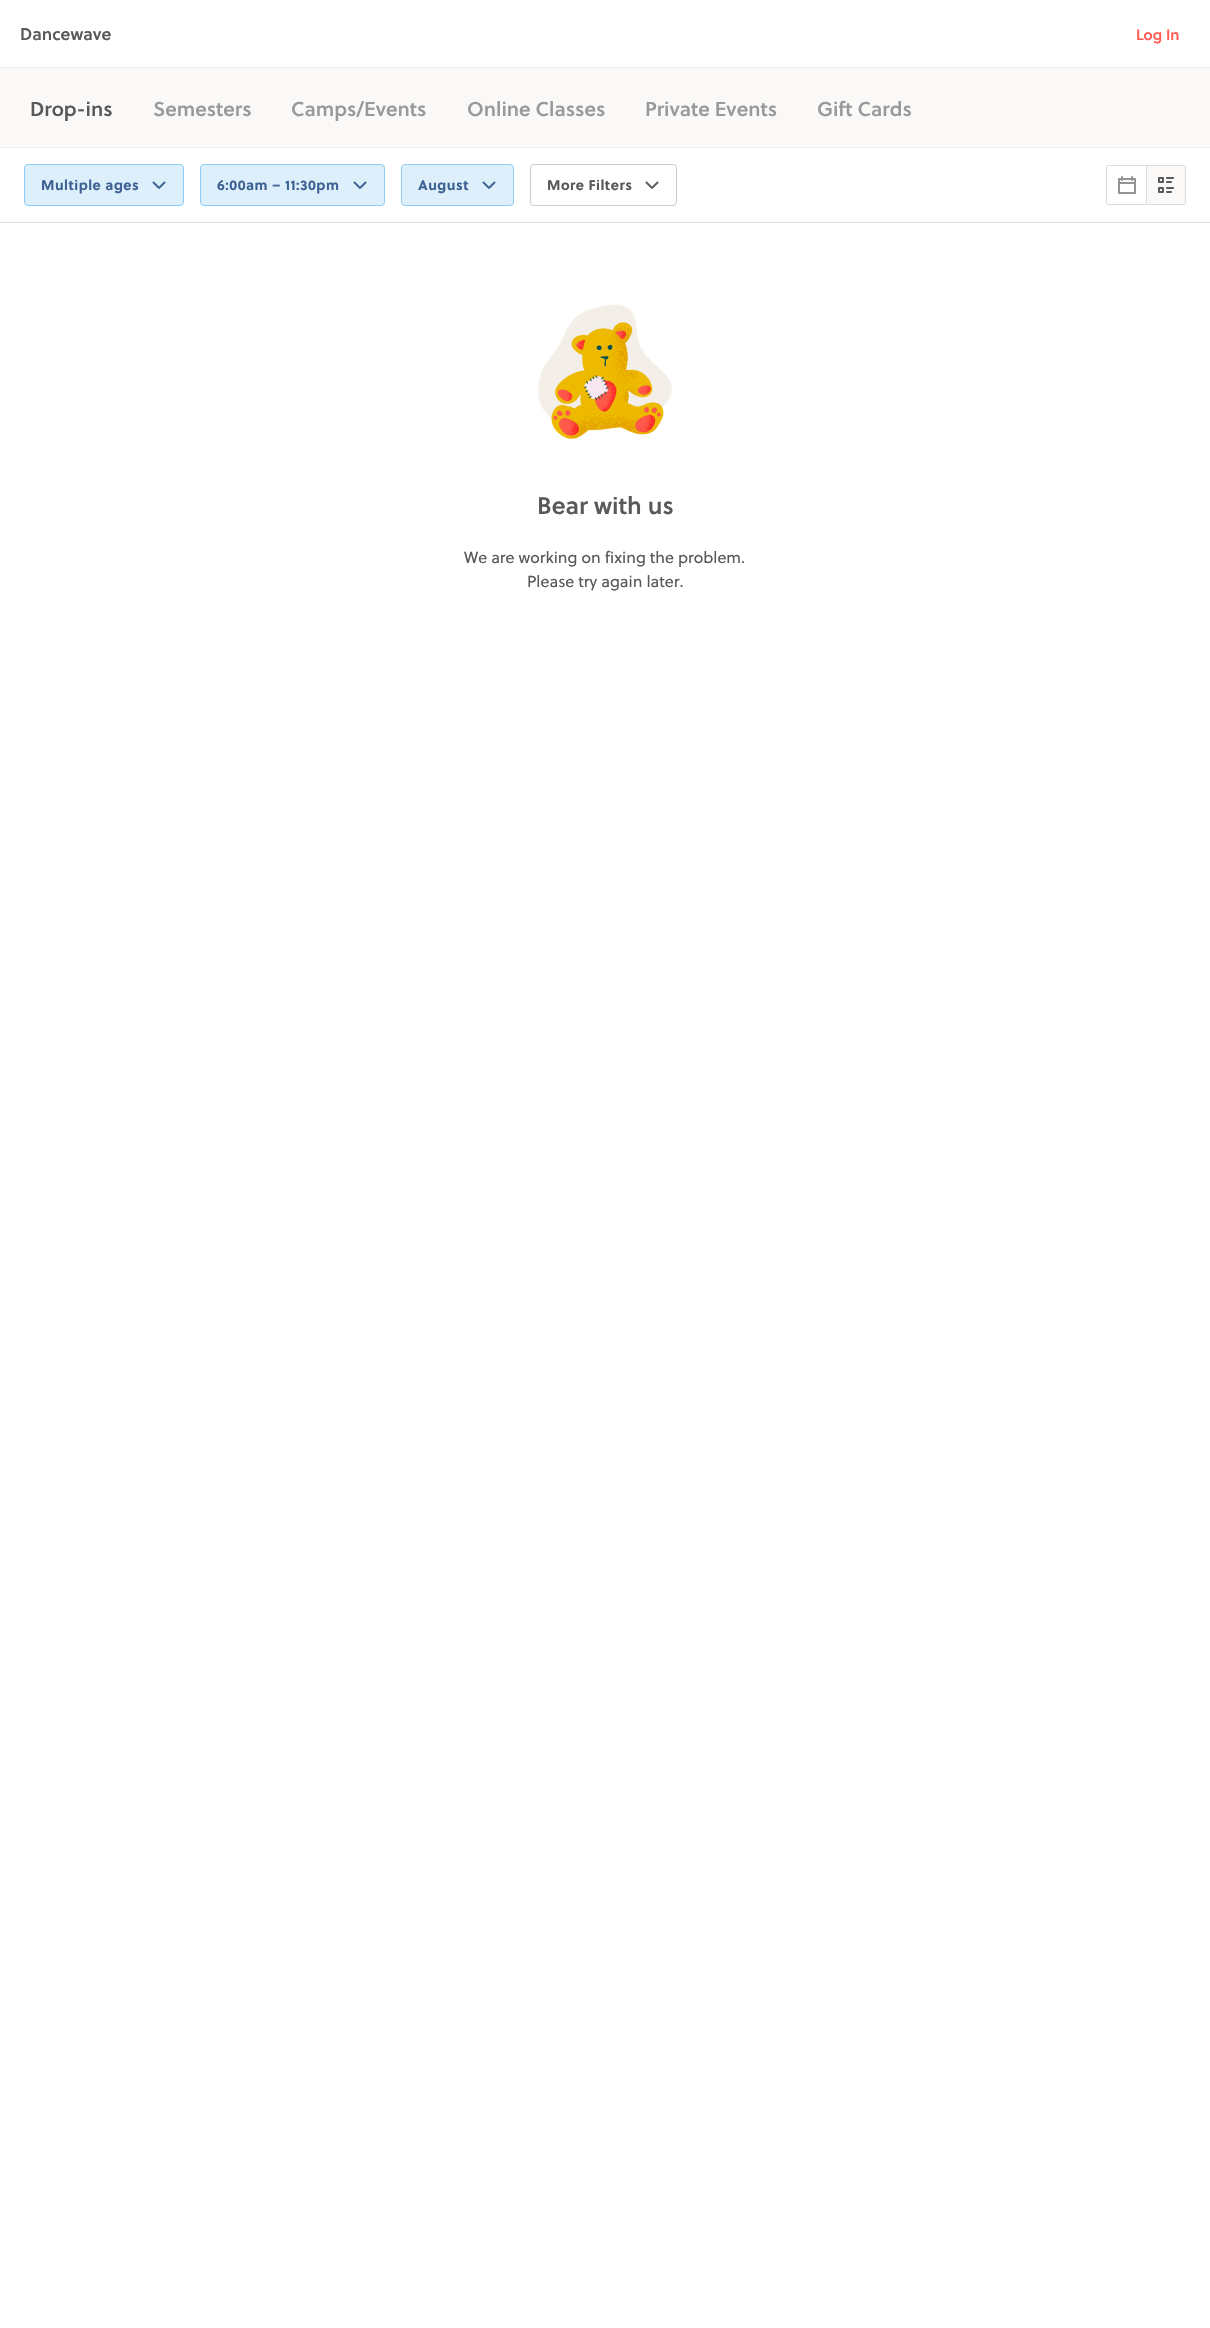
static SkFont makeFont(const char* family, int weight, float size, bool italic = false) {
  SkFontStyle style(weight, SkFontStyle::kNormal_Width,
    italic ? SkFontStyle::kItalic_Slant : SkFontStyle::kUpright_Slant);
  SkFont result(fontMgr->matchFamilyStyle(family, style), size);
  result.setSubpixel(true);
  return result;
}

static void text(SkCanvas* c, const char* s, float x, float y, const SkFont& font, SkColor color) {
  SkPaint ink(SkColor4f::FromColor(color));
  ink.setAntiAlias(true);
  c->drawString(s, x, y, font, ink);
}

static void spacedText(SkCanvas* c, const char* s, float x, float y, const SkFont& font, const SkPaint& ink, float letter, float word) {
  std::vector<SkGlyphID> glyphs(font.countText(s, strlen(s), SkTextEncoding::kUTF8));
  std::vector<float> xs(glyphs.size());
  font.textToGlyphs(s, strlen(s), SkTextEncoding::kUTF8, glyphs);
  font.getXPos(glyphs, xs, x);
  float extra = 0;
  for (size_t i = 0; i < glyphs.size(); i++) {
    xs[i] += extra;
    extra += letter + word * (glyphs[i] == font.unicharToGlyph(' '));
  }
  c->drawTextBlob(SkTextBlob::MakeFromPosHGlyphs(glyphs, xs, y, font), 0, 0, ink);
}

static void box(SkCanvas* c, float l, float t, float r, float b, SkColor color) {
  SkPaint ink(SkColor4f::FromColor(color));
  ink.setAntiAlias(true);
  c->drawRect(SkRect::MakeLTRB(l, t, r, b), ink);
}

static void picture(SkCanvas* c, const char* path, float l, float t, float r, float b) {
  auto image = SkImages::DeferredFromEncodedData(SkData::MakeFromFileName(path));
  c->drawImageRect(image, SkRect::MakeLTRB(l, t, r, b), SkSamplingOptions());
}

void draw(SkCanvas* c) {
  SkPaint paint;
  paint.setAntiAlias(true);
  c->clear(0xffffffff);
  box(c, 0, 67, 1210, 68, 0xfff3f0eb);
  SkFont face1 = makeFont("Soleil", 600, 17);
  text(c, "Dancewave", 20, 40, face1, 0xff595959);
  SkFont face2 = makeFont("Soleil", 600, 15);
  text(c, "Log In", 1136, 40, face2, 0xffff5a52);
  box(c, 0, 68, 1210, 147, 0xfffaf9f7);
  box(c, 0, 147, 1210, 148, 0xfff3f0eb);
  SkFont face3 = makeFont("Soleil", 600, 20);
  text(c, "Drop-ins", 30, 116, face3, 0xff595959);
  text(c, "Semesters", 153, 116, face3, 0xff999999);
  text(c, "Camps/Events", 291, 116, face3, 0xff999999);
  text(c, "Online Classes", 467, 116, face3, 0xff999999);
  text(c, "Private Events", 645, 116, face3, 0xff999999);
  text(c, "Gift Cards", 817, 116, face3, 0xff999999);
  box(c, 0, 222, 1210, 223, 0xffdfdbd9);
  paint.setColor(0xffddeffa);
  c->drawRoundRect(SkRect::MakeLTRB(24.5f, 164.5f, 183.5f, 205.5f), 3.5f, 3.5f, paint);
  paint.setStyle(SkPaint::kStroke_Style);
  paint.setStrokeWidth(1);
  paint.setColor(0xff90cdf3);
  c->drawRoundRect(SkRect::MakeLTRB(24.5f, 164.5f, 183.5f, 205.5f), 3.5f, 3.5f, paint);
  SkFont face4 = makeFont("Soleil", 700, 14);
  paint.setStyle(SkPaint::kFill_Style);
  paint.setColor(0xff3d6194);
  spacedText(c, "Multiple ages", 41, 190, face4, paint, 0.5f, 0);
  picture(c, "img_01.png", 152, 181, 166, 189);
  paint.setColor(0xffddeffa);
  c->drawRoundRect(SkRect::MakeLTRB(200.5f, 164.5f, 384.5f, 205.5f), 3.5f, 3.5f, paint);
  paint.setStyle(SkPaint::kStroke_Style);
  paint.setColor(0xff90cdf3);
  c->drawRoundRect(SkRect::MakeLTRB(200.5f, 164.5f, 384.5f, 205.5f), 3.5f, 3.5f, paint);
  paint.setStyle(SkPaint::kFill_Style);
  paint.setColor(0xff3d6194);
  spacedText(c, "6:00am – 11:30pm", 217, 190, face4, paint, 0.5f, 0);
  picture(c, "img_01.png", 353, 181, 367, 189);
  paint.setColor(0xffddeffa);
  c->drawRoundRect(SkRect::MakeLTRB(401.5f, 164.5f, 513.5f, 205.5f), 3.5f, 3.5f, paint);
  paint.setStyle(SkPaint::kStroke_Style);
  paint.setColor(0xff90cdf3);
  c->drawRoundRect(SkRect::MakeLTRB(401.5f, 164.5f, 513.5f, 205.5f), 3.5f, 3.5f, paint);
  paint.setStyle(SkPaint::kFill_Style);
  paint.setColor(0xff3d6194);
  spacedText(c, "August", 418, 190, face4, paint, 0.5f, 0);
  picture(c, "img_01.png", 482, 181, 496, 189);
  paint.setStyle(SkPaint::kStroke_Style);
  paint.setColor(0xffcccccc);
  c->drawRoundRect(SkRect::MakeLTRB(530.5f, 164.5f, 676.5f, 205.5f), 3.5f, 3.5f, paint);
  paint.setStyle(SkPaint::kFill_Style);
  paint.setColor(0xff595959);
  spacedText(c, "More Filters", 547, 190, face4, paint, 0.5f, 0);
  picture(c, "img_02.png", 645, 181, 659, 189);
  box(c, 1107, 165, 1146, 166, 0xffdfdbd9);
  box(c, 1107, 204, 1146, 205, 0xffdfdbd9);
  box(c, 1106, 166, 1107, 204, 0xffdfdbd9);
  picture(c, "img_03.png", 1118, 176, 1136, 194);
  paint.setColor(0xfffaf9f7);
  c->drawPath(SkPathBuilder().moveTo(1146.5f, 165.5f).lineTo(1184, 165.5f).cubicTo(1185, 165.5f, 1185.5f, 166, 1185.5f, 167).lineTo(1185.5f, 203).cubicTo(1185.5f, 204, 1185, 204.5f, 1184, 204.5f).lineTo(1146.5f, 204.5f).close().detach(), paint);
  paint.setStyle(SkPaint::kStroke_Style);
  paint.setColor(0xffdfdbd9);
  c->drawPath(SkPathBuilder().moveTo(1146.5f, 165.5f).lineTo(1184, 165.5f).cubicTo(1185, 165.5f, 1185.5f, 166, 1185.5f, 167).lineTo(1185.5f, 203).cubicTo(1185.5f, 204, 1185, 204.5f, 1184, 204.5f).lineTo(1146.5f, 204.5f).close().detach(), paint);
  picture(c, "img_04.png", 1158, 177, 1174, 193);
  picture(c, "img_05.png", 537, 304, 673, 439);
  SkFont face5 = makeFont("Soleil", 600, 24);
  text(c, "Bear with us", 537, 514, face5, 0xff595959);
  SkFont face6 = makeFont("Soleil", 400, 16);
  text(c, "We are working on fixing the problem.", 464, 563, face6, 0xff595959);
  text(c, "Please try again later.", 527, 587, face6, 0xff595959);
}
